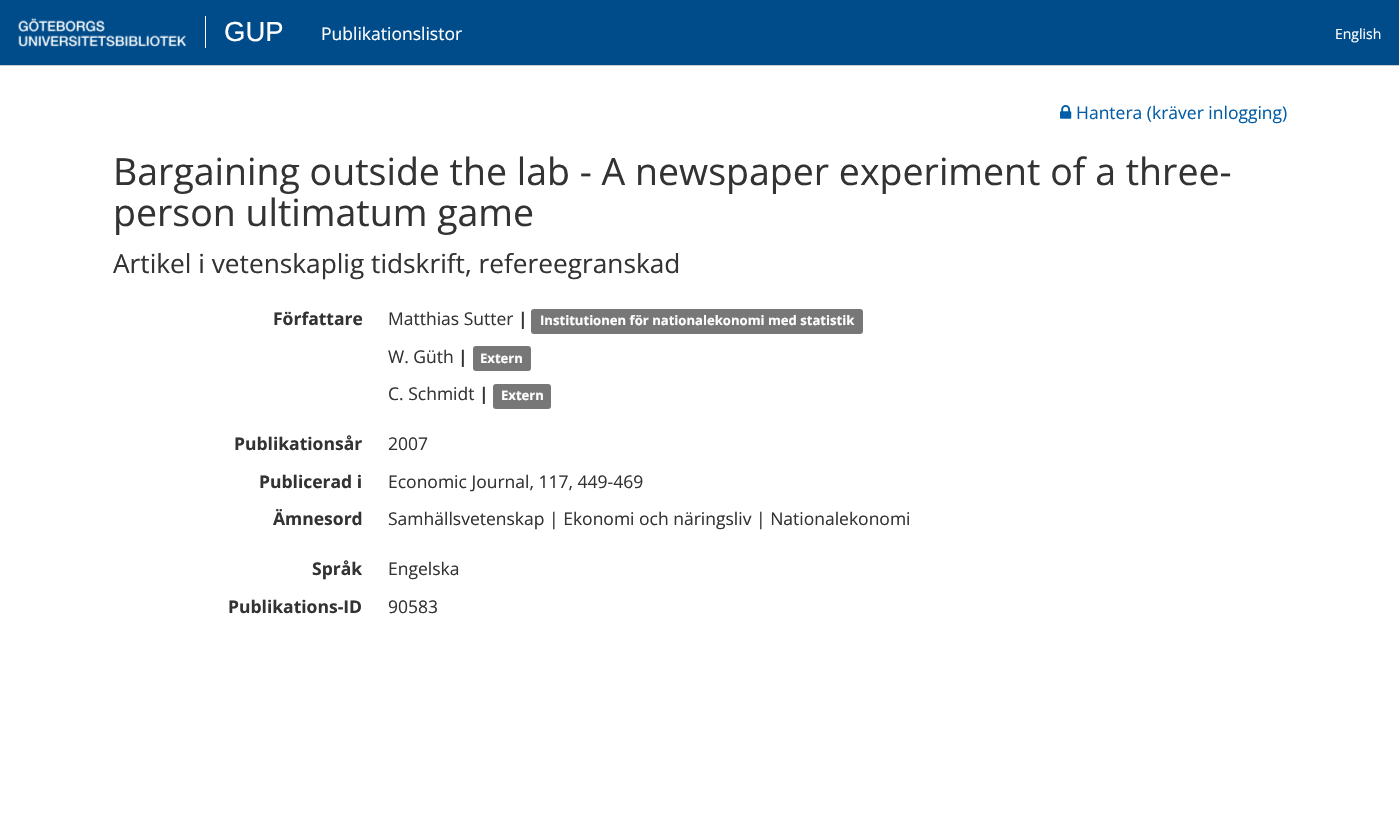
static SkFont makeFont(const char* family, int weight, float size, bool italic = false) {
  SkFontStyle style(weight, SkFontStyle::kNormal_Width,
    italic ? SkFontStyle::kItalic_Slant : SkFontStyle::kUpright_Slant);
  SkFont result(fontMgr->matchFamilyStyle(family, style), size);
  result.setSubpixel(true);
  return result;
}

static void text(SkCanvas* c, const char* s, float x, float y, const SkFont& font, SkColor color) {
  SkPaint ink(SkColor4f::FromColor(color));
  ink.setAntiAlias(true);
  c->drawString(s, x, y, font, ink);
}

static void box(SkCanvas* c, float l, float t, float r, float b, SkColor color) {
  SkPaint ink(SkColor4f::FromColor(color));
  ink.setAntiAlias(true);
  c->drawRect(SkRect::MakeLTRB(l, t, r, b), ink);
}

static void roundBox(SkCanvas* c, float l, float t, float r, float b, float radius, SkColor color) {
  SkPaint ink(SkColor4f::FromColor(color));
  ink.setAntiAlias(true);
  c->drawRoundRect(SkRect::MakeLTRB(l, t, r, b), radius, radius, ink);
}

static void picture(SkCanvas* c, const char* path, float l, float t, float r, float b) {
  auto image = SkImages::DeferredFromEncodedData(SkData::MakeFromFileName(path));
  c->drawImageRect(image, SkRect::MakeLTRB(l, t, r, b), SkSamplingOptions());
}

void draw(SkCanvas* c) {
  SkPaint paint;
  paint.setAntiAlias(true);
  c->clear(0xffffffff);
  box(c, 0, 0, 1399, 65, 0xff004b89);
  box(c, 0, 65, 1399, 66, 0xffcccccc);
  picture(c, "img_01.png", 18, 18, 186, 47);
  box(c, 205, 16, 206, 48, 0xffffffff);
  SkFont face1 = makeFont("Liberation Sans", 400, 27.5f);
  text(c, "GUP", 224, 41, face1, 0xffffffff);
  SkFont face2 = makeFont("Open Sans", 400, 17.5f);
  text(c, "Publikationslistor", 321, 40, face2, 0xffffffff);
  SkFont face3 = makeFont("Open Sans", 400, 14);
  text(c, "English", 1335, 39, face3, 0xffffffff);
  picture(c, "img_02.png", 1060, 105, 1072, 119);
  text(c, "Hantera (kräver inlogging)", 1076, 119, face2, 0xff025da6);
  SkFont face4 = makeFont("Open Sans", 400, 37.5f);
  text(c, "Bargaining outside the lab - A newspaper experiment of a three-", 113, 185, face4, 0xff333333);
  text(c, "person ultimatum game", 113, 226, face4, 0xff333333);
  SkFont face5 = makeFont("Open Sans", 400, 26.25f);
  text(c, "Artikel i vetenskaplig tidskrift, refereegranskad", 113, 273, face5, 0xff333333);
  SkFont face6 = makeFont("Open Sans", 700, 17.5f);
  text(c, "Författare", 273, 325, face6, 0xff333333);
  text(c, "Matthias Sutter", 388, 325, face2, 0xff333333);
  text(c, "|", 518, 325, face6, 0xff333333);
  roundBox(c, 531, 309, 863, 334, 3, 0xff777777);
  SkFont face7 = makeFont("Open Sans", 700, 13.1f);
  text(c, "Institutionen för nationalekonomi med statistik", 540, 325, face7, 0xffffffff);
  text(c, "W. Güth", 388, 363, face2, 0xff333333);
  text(c, "|", 458, 363, face6, 0xff333333);
  roundBox(c, 473, 346, 531, 371, 3, 0xff777777);
  text(c, "Extern", 480, 363, face7, 0xffffffff);
  text(c, "C. Schmidt", 388, 400, face2, 0xff333333);
  text(c, "|", 479, 400, face6, 0xff333333);
  roundBox(c, 493, 384, 551, 409, 3, 0xff777777);
  text(c, "Extern", 501, 400, face7, 0xffffffff);
  text(c, "Publikationsår", 234, 450, face6, 0xff333333);
  text(c, "2007", 388, 450, face2, 0xff333333);
  text(c, "Publicerad i", 259, 488, face6, 0xff333333);
  text(c, "Economic Journal, 117, 449-469", 388, 488, face2, 0xff333333);
  text(c, "Ämnesord", 273, 525, face6, 0xff333333);
  text(c, "Samhällsvetenskap | Ekonomi och näringsliv | Nationalekonomi", 388, 525, face2, 0xff333333);
  text(c, "Språk", 312, 575, face6, 0xff333333);
  text(c, "Engelska", 388, 575, face2, 0xff333333);
  text(c, "Publikations-ID", 228, 613, face6, 0xff333333);
  text(c, "90583", 388, 613, face2, 0xff333333);
}
